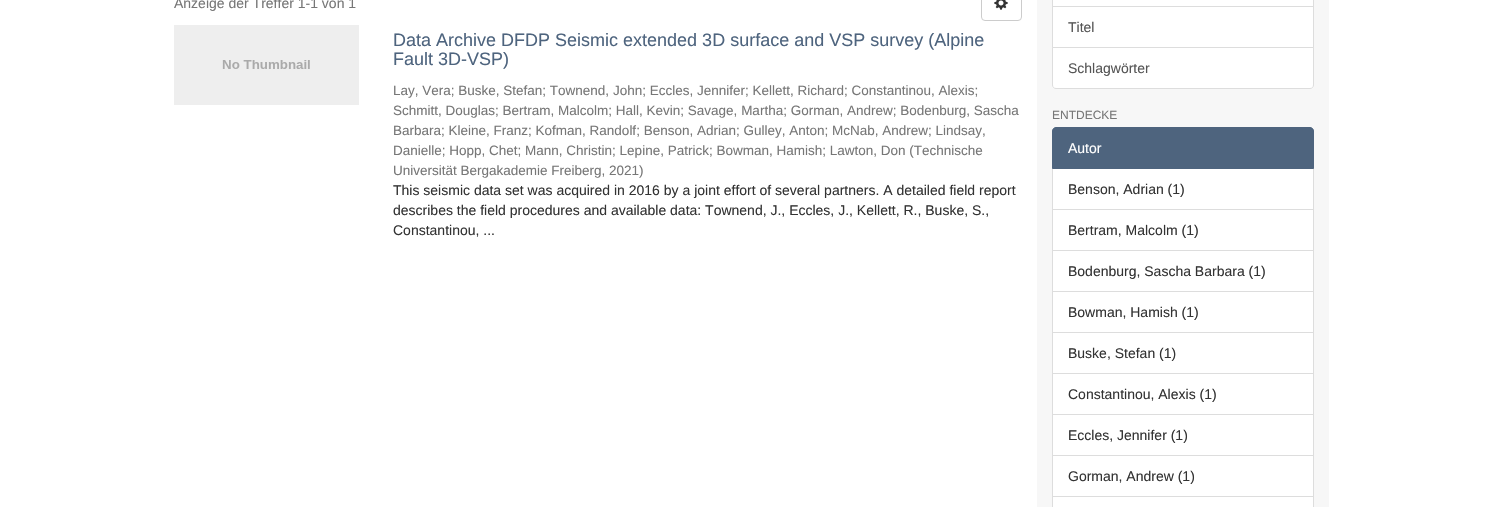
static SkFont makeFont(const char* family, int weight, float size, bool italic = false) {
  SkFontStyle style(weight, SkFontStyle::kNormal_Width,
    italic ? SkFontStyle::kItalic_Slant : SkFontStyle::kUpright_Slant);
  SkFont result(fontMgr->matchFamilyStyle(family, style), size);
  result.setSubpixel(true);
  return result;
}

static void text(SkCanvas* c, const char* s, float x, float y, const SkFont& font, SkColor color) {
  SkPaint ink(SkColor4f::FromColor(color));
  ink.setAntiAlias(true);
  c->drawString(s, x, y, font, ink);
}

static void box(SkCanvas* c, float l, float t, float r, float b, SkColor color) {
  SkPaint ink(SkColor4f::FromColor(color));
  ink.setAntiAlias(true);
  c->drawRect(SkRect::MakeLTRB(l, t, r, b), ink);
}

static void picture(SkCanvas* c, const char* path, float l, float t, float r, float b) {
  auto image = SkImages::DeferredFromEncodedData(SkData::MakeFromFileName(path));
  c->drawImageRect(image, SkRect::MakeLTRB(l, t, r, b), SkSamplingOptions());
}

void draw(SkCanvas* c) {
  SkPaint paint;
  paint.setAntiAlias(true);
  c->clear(0xffffffff);
  box(c, 1037, 0, 1329, 507, 0xfff7f7f7);
  SkFont face1 = makeFont("Liberation Sans", 400, 14);
  text(c, "Anzeige der Treffer 1-1 von 1", 174, 8, face1, 0xff777777);
  paint.setStyle(SkPaint::kStroke_Style);
  paint.setStrokeWidth(1);
  paint.setColor(0xffcccccc);
  c->drawRoundRect(SkRect::MakeLTRB(981.5f, -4.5f, 1021.5f, 20.5f), 3.5f, 3.5f, paint);
  picture(c, "img_01.png", 994, 0, 1008, 10);
  picture(c, "img_02.png", 174, 25, 359, 105);
  SkFont face2 = makeFont("Liberation Sans", 400, 18);
  text(c, "Data Archive DFDP Seismic extended 3D surface and VSP survey (Alpine", 393, 46, face2, 0xff4e647e);
  text(c, "Fault 3D-VSP)", 393, 65, face2, 0xff4e647e);
  SkFont face3 = makeFont("Liberation Sans", 400, 13.5f);
  text(c, "Lay, Vera; Buske, Stefan; Townend, John; Eccles, Jennifer; Kellett, Richard; Constantinou, Alexis;", 393, 95, face3, 0xff777777);
  text(c, "Schmitt, Douglas; Bertram, Malcolm; Hall, Kevin; Savage, Martha; Gorman, Andrew; Bodenburg, Sascha", 393, 115, face3, 0xff777777);
  text(c, "Barbara; Kleine, Franz; Kofman, Randolf; Benson, Adrian; Gulley, Anton; McNab, Andrew; Lindsay,", 393, 135, face3, 0xff777777);
  text(c, "Danielle; Hopp, Chet; Mann, Christin; Lepine, Patrick; Bowman, Hamish; Lawton, Don (Technische", 393, 155, face3, 0xff777777);
  text(c, "Universität Bergakademie Freiberg, 2021)", 393, 175, face3, 0xff777777);
  text(c, "This seismic data set was acquired in 2016 by a joint effort of several partners. A detailed field report", 393, 195, face1, 0xff333333);
  text(c, "describes the field procedures and available data: Townend, J., Eccles, J., Kellett, R., Buske, S.,", 393, 215, face1, 0xff333333);
  text(c, "Constantinou, ...", 393, 235, face1, 0xff333333);
  paint.setStyle(SkPaint::kFill_Style);
  paint.setColor(0xffffffff);
  c->drawRect(SkRect::MakeLTRB(1052.5f, -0.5f, 1313.5f, 6.5f), paint);
  paint.setStyle(SkPaint::kStroke_Style);
  paint.setColor(0xffdddddd);
  c->drawRect(SkRect::MakeLTRB(1052.5f, -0.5f, 1313.5f, 6.5f), paint);
  paint.setStyle(SkPaint::kFill_Style);
  paint.setColor(0xffffffff);
  c->drawRect(SkRect::MakeLTRB(1052.5f, 6.5f, 1313.5f, 47.5f), paint);
  paint.setStyle(SkPaint::kStroke_Style);
  paint.setColor(0xffdddddd);
  c->drawRect(SkRect::MakeLTRB(1052.5f, 6.5f, 1313.5f, 47.5f), paint);
  text(c, "Titel", 1068, 32, face1, 0xff555555);
  paint.setStyle(SkPaint::kFill_Style);
  paint.setColor(0xffffffff);
  c->drawPath(SkPathBuilder().moveTo(1052.5f, 47.5f).lineTo(1313.5f, 47.5f).lineTo(1313.5f, 85).cubicTo(1313.5f, 87, 1312, 88.5f, 1310, 88.5f).lineTo(1056, 88.5f).cubicTo(1054, 88.5f, 1052.5f, 87, 1052.5f, 85).close().detach(), paint);
  paint.setStyle(SkPaint::kStroke_Style);
  paint.setColor(0xffdddddd);
  c->drawPath(SkPathBuilder().moveTo(1052.5f, 47.5f).lineTo(1313.5f, 47.5f).lineTo(1313.5f, 85).cubicTo(1313.5f, 87, 1312, 88.5f, 1310, 88.5f).lineTo(1056, 88.5f).cubicTo(1054, 88.5f, 1052.5f, 87, 1052.5f, 85).close().detach(), paint);
  text(c, "Schlagwörter", 1068, 73, face1, 0xff555555);
  SkFont face4 = makeFont("Liberation Sans", 400, 12);
  text(c, "ENTDECKE", 1052, 119, face4, 0xff777777);
  paint.setStyle(SkPaint::kFill_Style);
  paint.setColor(0xffffffff);
  c->drawRect(SkRect::MakeLTRB(1052.5f, 168.5f, 1313.5f, 209.5f), paint);
  paint.setStyle(SkPaint::kStroke_Style);
  paint.setColor(0xffdddddd);
  c->drawRect(SkRect::MakeLTRB(1052.5f, 168.5f, 1313.5f, 209.5f), paint);
  paint.setStyle(SkPaint::kFill_Style);
  paint.setColor(0xff4e647e);
  c->drawPath(SkPathBuilder().moveTo(1056, 127.5f).lineTo(1310, 127.5f).cubicTo(1312, 127.5f, 1313.5f, 129, 1313.5f, 131).lineTo(1313.5f, 168.5f).lineTo(1052.5f, 168.5f).lineTo(1052.5f, 131).cubicTo(1052.5f, 129, 1054, 127.5f, 1056, 127.5f).close().detach(), paint);
  paint.setStyle(SkPaint::kStroke_Style);
  c->drawPath(SkPathBuilder().moveTo(1056, 127.5f).lineTo(1310, 127.5f).cubicTo(1312, 127.5f, 1313.5f, 129, 1313.5f, 131).lineTo(1313.5f, 168.5f).lineTo(1052.5f, 168.5f).lineTo(1052.5f, 131).cubicTo(1052.5f, 129, 1054, 127.5f, 1056, 127.5f).close().detach(), paint);
  text(c, "Autor", 1068, 153, face1, 0xffffffff);
  text(c, "Benson, Adrian (1)", 1068, 194, face1, 0xff333333);
  paint.setStyle(SkPaint::kFill_Style);
  paint.setColor(0xffffffff);
  c->drawRect(SkRect::MakeLTRB(1052.5f, 209.5f, 1313.5f, 250.5f), paint);
  paint.setStyle(SkPaint::kStroke_Style);
  paint.setColor(0xffdddddd);
  c->drawRect(SkRect::MakeLTRB(1052.5f, 209.5f, 1313.5f, 250.5f), paint);
  text(c, "Bertram, Malcolm (1)", 1068, 235, face1, 0xff333333);
  paint.setStyle(SkPaint::kFill_Style);
  paint.setColor(0xffffffff);
  c->drawRect(SkRect::MakeLTRB(1052.5f, 250.5f, 1313.5f, 291.5f), paint);
  paint.setStyle(SkPaint::kStroke_Style);
  paint.setColor(0xffdddddd);
  c->drawRect(SkRect::MakeLTRB(1052.5f, 250.5f, 1313.5f, 291.5f), paint);
  text(c, "Bodenburg, Sascha Barbara (1)", 1068, 276, face1, 0xff333333);
  paint.setStyle(SkPaint::kFill_Style);
  paint.setColor(0xffffffff);
  c->drawRect(SkRect::MakeLTRB(1052.5f, 291.5f, 1313.5f, 332.5f), paint);
  paint.setStyle(SkPaint::kStroke_Style);
  paint.setColor(0xffdddddd);
  c->drawRect(SkRect::MakeLTRB(1052.5f, 291.5f, 1313.5f, 332.5f), paint);
  text(c, "Bowman, Hamish (1)", 1068, 317, face1, 0xff333333);
  paint.setStyle(SkPaint::kFill_Style);
  paint.setColor(0xffffffff);
  c->drawRect(SkRect::MakeLTRB(1052.5f, 332.5f, 1313.5f, 373.5f), paint);
  paint.setStyle(SkPaint::kStroke_Style);
  paint.setColor(0xffdddddd);
  c->drawRect(SkRect::MakeLTRB(1052.5f, 332.5f, 1313.5f, 373.5f), paint);
  text(c, "Buske, Stefan (1)", 1068, 358, face1, 0xff333333);
  paint.setStyle(SkPaint::kFill_Style);
  paint.setColor(0xffffffff);
  c->drawRect(SkRect::MakeLTRB(1052.5f, 373.5f, 1313.5f, 414.5f), paint);
  paint.setStyle(SkPaint::kStroke_Style);
  paint.setColor(0xffdddddd);
  c->drawRect(SkRect::MakeLTRB(1052.5f, 373.5f, 1313.5f, 414.5f), paint);
  text(c, "Constantinou, Alexis (1)", 1068, 399, face1, 0xff333333);
  paint.setStyle(SkPaint::kFill_Style);
  paint.setColor(0xffffffff);
  c->drawRect(SkRect::MakeLTRB(1052.5f, 414.5f, 1313.5f, 455.5f), paint);
  paint.setStyle(SkPaint::kStroke_Style);
  paint.setColor(0xffdddddd);
  c->drawRect(SkRect::MakeLTRB(1052.5f, 414.5f, 1313.5f, 455.5f), paint);
  text(c, "Eccles, Jennifer (1)", 1068, 440, face1, 0xff333333);
  paint.setStyle(SkPaint::kFill_Style);
  paint.setColor(0xffffffff);
  c->drawRect(SkRect::MakeLTRB(1052.5f, 455.5f, 1313.5f, 496.5f), paint);
  paint.setStyle(SkPaint::kStroke_Style);
  paint.setColor(0xffdddddd);
  c->drawRect(SkRect::MakeLTRB(1052.5f, 455.5f, 1313.5f, 496.5f), paint);
  text(c, "Gorman, Andrew (1)", 1068, 481, face1, 0xff333333);
  paint.setStyle(SkPaint::kFill_Style);
  paint.setColor(0xffffffff);
  c->drawRect(SkRect::MakeLTRB(1052.5f, 496.5f, 1313.5f, 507.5f), paint);
  paint.setStyle(SkPaint::kStroke_Style);
  paint.setColor(0xffdddddd);
  c->drawRect(SkRect::MakeLTRB(1052.5f, 496.5f, 1313.5f, 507.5f), paint);
}
